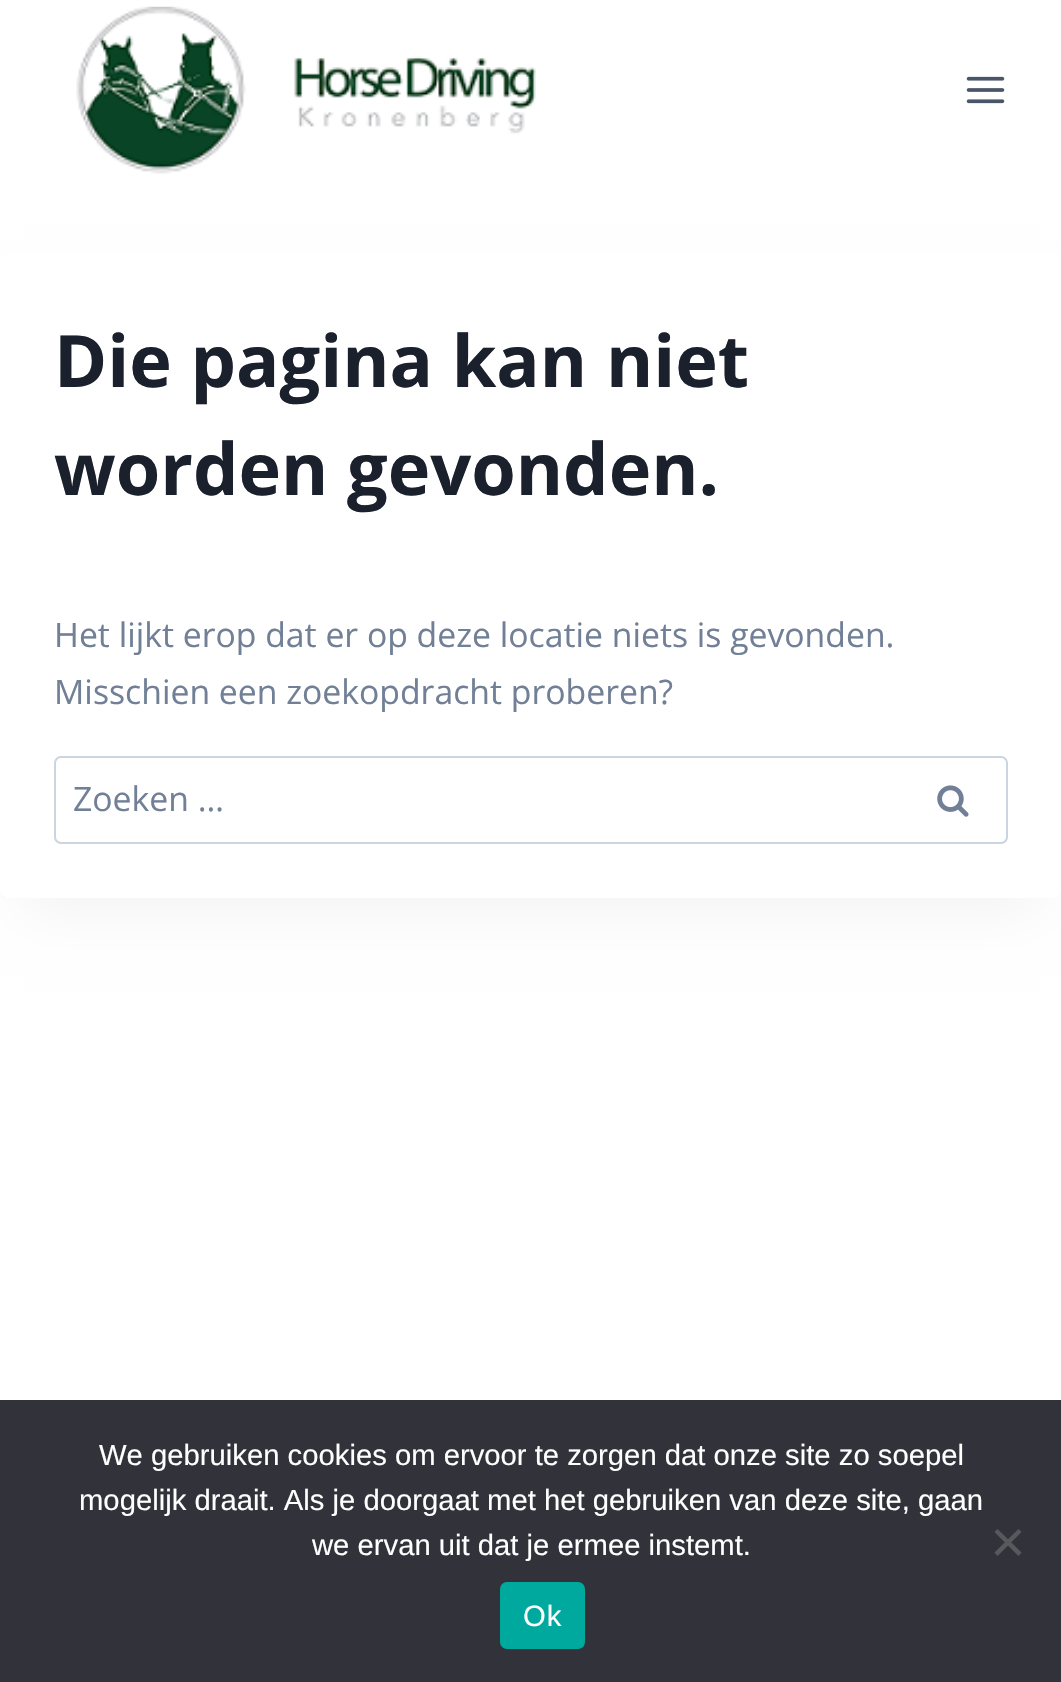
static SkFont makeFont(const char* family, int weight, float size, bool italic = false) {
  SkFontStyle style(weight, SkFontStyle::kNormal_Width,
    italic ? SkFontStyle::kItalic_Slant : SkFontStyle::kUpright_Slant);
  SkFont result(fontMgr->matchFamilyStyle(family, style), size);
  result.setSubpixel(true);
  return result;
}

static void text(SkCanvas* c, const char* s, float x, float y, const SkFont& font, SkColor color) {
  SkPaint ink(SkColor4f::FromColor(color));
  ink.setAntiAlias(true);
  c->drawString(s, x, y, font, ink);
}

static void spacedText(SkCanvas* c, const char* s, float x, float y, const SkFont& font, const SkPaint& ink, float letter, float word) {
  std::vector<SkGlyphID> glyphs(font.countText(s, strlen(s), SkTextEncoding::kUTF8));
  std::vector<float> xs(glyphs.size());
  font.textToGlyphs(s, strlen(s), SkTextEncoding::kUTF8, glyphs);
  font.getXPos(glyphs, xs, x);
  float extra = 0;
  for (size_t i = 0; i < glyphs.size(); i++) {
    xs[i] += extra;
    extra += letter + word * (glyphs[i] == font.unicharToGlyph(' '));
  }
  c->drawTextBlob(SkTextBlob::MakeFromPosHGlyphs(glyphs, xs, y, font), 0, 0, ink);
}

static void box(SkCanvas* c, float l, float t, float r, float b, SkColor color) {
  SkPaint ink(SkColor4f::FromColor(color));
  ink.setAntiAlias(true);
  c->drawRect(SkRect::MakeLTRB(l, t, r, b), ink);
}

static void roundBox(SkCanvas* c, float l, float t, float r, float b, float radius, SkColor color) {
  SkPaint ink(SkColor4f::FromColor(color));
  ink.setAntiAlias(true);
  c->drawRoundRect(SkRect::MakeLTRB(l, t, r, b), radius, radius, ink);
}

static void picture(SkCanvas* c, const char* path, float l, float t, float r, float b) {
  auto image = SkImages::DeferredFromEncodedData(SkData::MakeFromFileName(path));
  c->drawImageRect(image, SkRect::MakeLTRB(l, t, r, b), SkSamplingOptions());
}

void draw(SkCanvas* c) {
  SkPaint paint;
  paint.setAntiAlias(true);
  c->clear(0xffffffff);
  picture(c, "img_01.png", 76, 6, 536, 174);
  picture(c, "img_02.png", 966, 76, 1005, 104);
  paint.setColor(0x0d000000);
  paint.setMaskFilter(SkMaskFilter::MakeBlur(kNormal_SkBlurStyle, 28));
  c->drawRect(SkRect::MakeLTRB(23, 308, 1040, 909), paint);
  paint.setMaskFilter(nullptr);
  roundBox(c, 0, 252, 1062, 898, 9, 0xffffffff);
  SkFont face1 = makeFont("Open Sans", 700, 72);
  text(c, "Die pagina kan niet", 54, 387, face1, 0xff1a202c);
  text(c, "worden gevonden.", 54, 495, face1, 0xff1a202c);
  SkFont face2 = makeFont("Open Sans", 400, 33.75f);
  text(c, "Het lijkt erop dat er op deze locatie niets is gevonden.", 54, 647, face2, 0xff718096);
  text(c, "Misschien een zoekopdracht proberen?", 54, 704, face2, 0xff718096);
  paint.setStyle(SkPaint::kStroke_Style);
  paint.setStrokeWidth(2);
  paint.setColor(0xffcbd5e0);
  c->drawRoundRect(SkRect::MakeLTRB(55, 757, 1007, 843), 6, 6, paint);
  text(c, "Zoeken …", 73, 811, face2, 0xff718096);
  picture(c, "img_03.png", 937, 785, 969, 817);
  box(c, 0, 1400, 1061, 1682, 0xff32323a);
  SkFont face3 = makeFont("Liberation Sans", 400, 29.25f);
  text(c, "We gebruiken cookies om ervoor te zorgen dat onze site zo soepel", 99, 1465, face3, 0xffffffff);
  text(c, "mogelijk draait. Als je doorgaat met het gebruiken van deze site, gaan", 79, 1510, face3, 0xffffffff);
  text(c, "we ervan uit dat je ermee instemt.", 312, 1555, face3, 0xffffffff);
  paint.setStyle(SkPaint::kFill_Style);
  paint.setColor(0xff59595d);
  c->drawPath(SkPathBuilder().moveTo(1018.5f, 1529).lineTo(1021.5f, 1532).lineTo(997.5f, 1556).lineTo(994.5f, 1552.5f).close().detach(), paint);
  c->drawPath(SkPathBuilder().moveTo(994.5f, 1532).lineTo(997.5f, 1529).lineTo(1021.5f, 1552.5f).lineTo(1018.5f, 1556).close().detach(), paint);
  roundBox(c, 500, 1582, 585, 1649, 7, 0xff00a99d);
  paint.setColor(0xffffffff);
  spacedText(c, "Ok", 523, 1626, face3, paint, 1, 0);
}
